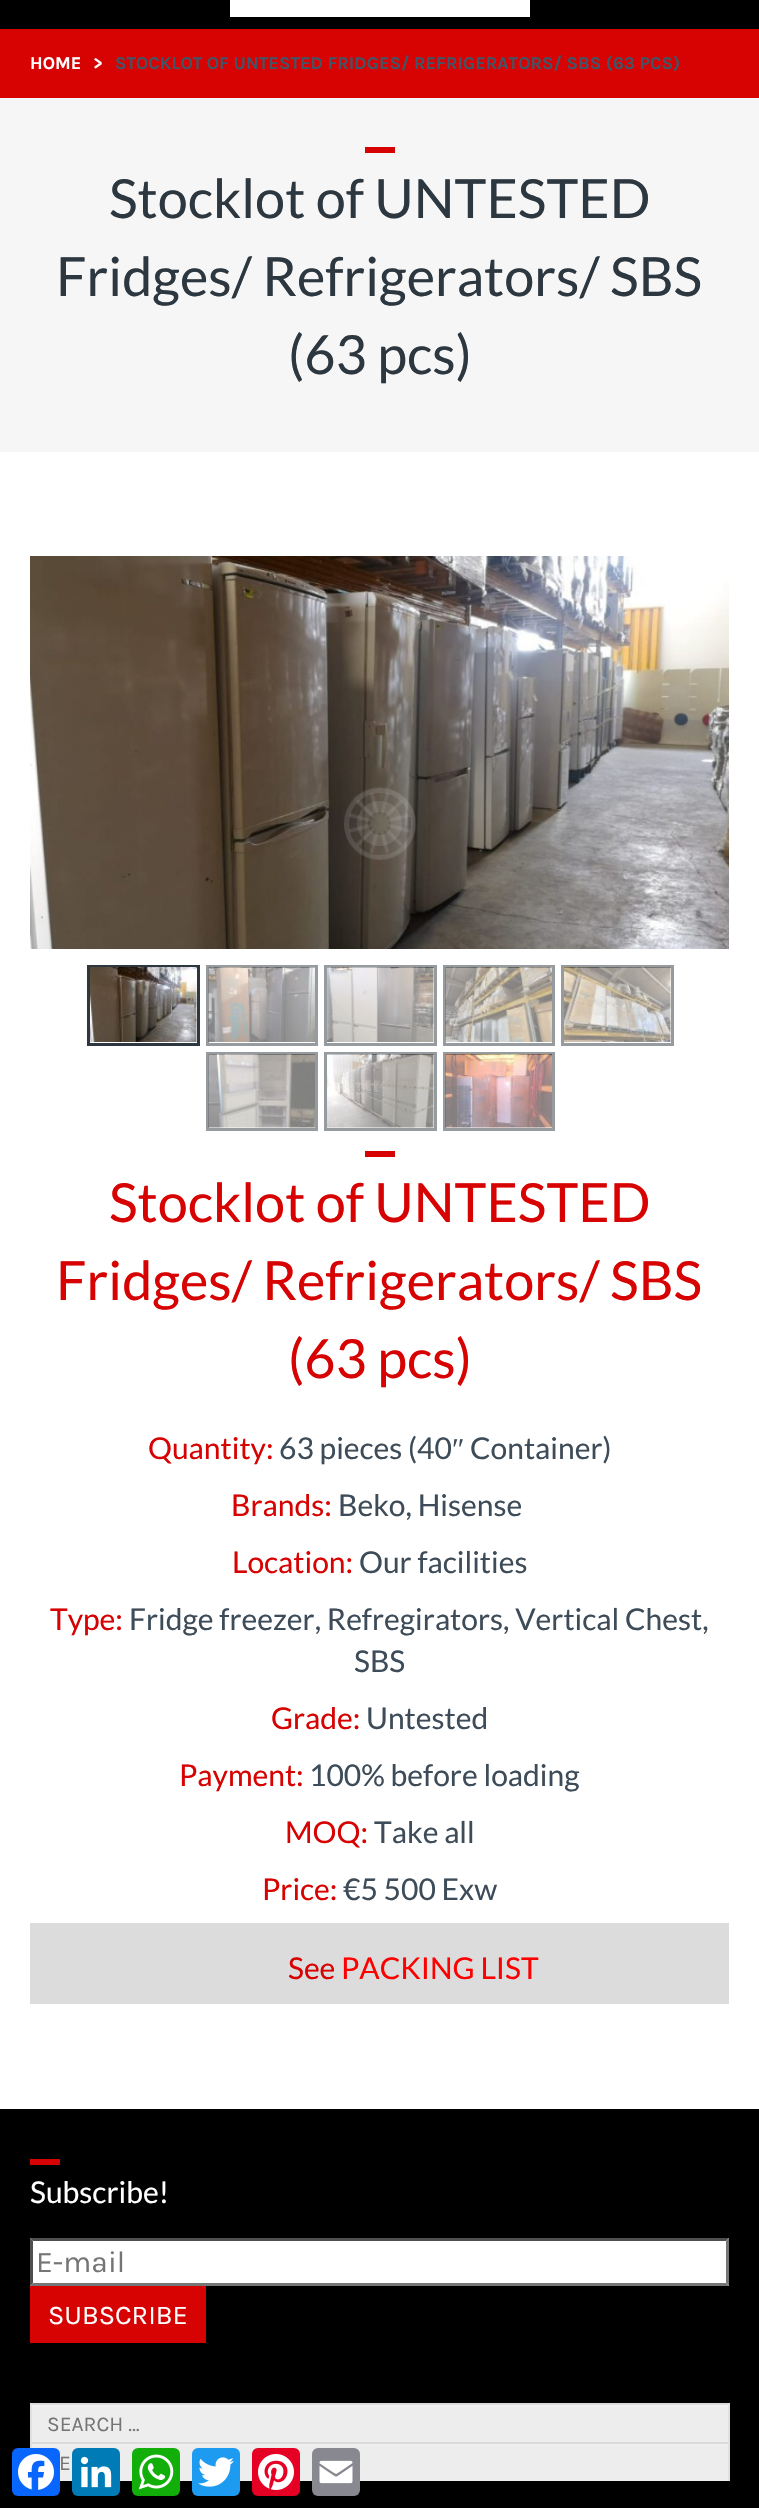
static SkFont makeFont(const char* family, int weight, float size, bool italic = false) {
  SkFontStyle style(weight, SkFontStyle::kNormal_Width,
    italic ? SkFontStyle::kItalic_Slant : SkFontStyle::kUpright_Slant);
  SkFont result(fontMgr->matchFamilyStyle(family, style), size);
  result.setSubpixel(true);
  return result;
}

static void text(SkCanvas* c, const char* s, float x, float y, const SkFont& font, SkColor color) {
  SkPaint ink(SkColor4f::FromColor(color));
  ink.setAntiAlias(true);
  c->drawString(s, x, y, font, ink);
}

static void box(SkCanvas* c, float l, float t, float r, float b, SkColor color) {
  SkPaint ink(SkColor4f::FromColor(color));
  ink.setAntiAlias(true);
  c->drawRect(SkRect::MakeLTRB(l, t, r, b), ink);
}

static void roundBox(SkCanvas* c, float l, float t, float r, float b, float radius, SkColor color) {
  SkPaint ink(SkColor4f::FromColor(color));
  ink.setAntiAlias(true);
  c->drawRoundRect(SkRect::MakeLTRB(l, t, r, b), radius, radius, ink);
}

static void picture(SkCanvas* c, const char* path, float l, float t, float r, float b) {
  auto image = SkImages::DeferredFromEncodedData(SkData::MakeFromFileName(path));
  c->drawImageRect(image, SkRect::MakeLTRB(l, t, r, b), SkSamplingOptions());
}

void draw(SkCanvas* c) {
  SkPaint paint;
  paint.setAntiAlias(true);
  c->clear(0xffffffff);
  box(c, 0, 0, 759, 29, 0xff000000);
  box(c, 230, 0, 530, 17, 0xffffffff);
  box(c, 0, 29, 759, 98, 0xffd70202);
  SkFont face1 = makeFont("Karla", 700, 18);
  text(c, "HOME", 30, 69, face1, 0xffffffff);
  text(c, ">", 93, 69, face1, 0xffffffff);
  text(c, "STOCKLOT OF UNTESTED FRIDGES/ REFRIGERATORS/ SBS (63 PCS)", 115, 69, face1, 0xff405667);
  box(c, 0, 98, 759, 452, 0xfff6f6f6);
  box(c, 365, 147, 395, 153, 0xffd70202);
  SkFont face2 = makeFont("Lato", 400, 54);
  text(c, "Stocklot of UNTESTED", 109, 218, face2, 0xff2c3740);
  text(c, "Fridges/ Refrigerators/ SBS", 56, 296, face2, 0xff2c3740);
  text(c, "(63 pcs)", 288, 374, face2, 0xff2c3740);
  picture(c, "img_01.png", 30, 556, 729, 949);
  picture(c, "img_02.png", 344, 787, 415, 859);
  paint.setStyle(SkPaint::kStroke_Style);
  paint.setStrokeWidth(5);
  paint.setColor(0x1affffff);
  c->drawCircle(380, 824, 33.5f, paint);
  picture(c, "img_03.png", 349, 792, 410, 854);
  paint.setStrokeWidth(11);
  c->drawCircle(379.5f, 823.5f, 17, paint);
  paint.setStrokeWidth(3);
  paint.setColor(0xff2c3740);
  c->drawRect(SkRect::MakeLTRB(88.5f, 966.5f, 198.5f, 1044.5f), paint);
  picture(c, "img_04.png", 90, 967, 197, 1042);
  paint.setColor(0xff969ba0);
  c->drawRect(SkRect::MakeLTRB(207.5f, 966.5f, 316.5f, 1044.5f), paint);
  picture(c, "img_05.png", 208, 967, 315, 1042);
  c->drawRect(SkRect::MakeLTRB(325.5f, 966.5f, 435.5f, 1044.5f), paint);
  picture(c, "img_06.png", 327, 967, 434, 1042);
  c->drawRect(SkRect::MakeLTRB(444.5f, 966.5f, 553.5f, 1044.5f), paint);
  picture(c, "img_07.png", 445, 967, 552, 1042);
  c->drawRect(SkRect::MakeLTRB(562.5f, 966.5f, 672.5f, 1044.5f), paint);
  picture(c, "img_08.png", 564, 967, 671, 1042);
  c->drawRect(SkRect::MakeLTRB(207.5f, 1053.5f, 316.5f, 1129.5f), paint);
  picture(c, "img_09.png", 208, 1054, 315, 1128);
  c->drawRect(SkRect::MakeLTRB(325.5f, 1053.5f, 435.5f, 1129.5f), paint);
  picture(c, "img_10.png", 327, 1054, 434, 1128);
  c->drawRect(SkRect::MakeLTRB(444.5f, 1053.5f, 553.5f, 1129.5f), paint);
  picture(c, "img_11.png", 445, 1054, 552, 1128);
  box(c, 365, 1151, 395, 1157, 0xffd70202);
  text(c, "Stocklot of UNTESTED", 109, 1222, face2, 0xffd70202);
  text(c, "Fridges/ Refrigerators/ SBS", 56, 1300, face2, 0xffd70202);
  text(c, "(63 pcs)", 288, 1378, face2, 0xffd70202);
  SkFont face3 = makeFont("Lato", 400, 30);
  text(c, "Quantity:", 148, 1459, face3, 0xffd70202);
  text(c, "63 pieces (40", 279, 1459, face3, 0xff3d4c58);
  SkFont face4 = makeFont("Liberation Serif", 400, 30);
  text(c, "″", 452, 1459, face4, 0xff3d4c58);
  text(c, "Container)", 470, 1459, face3, 0xff3d4c58);
  text(c, "Brands:", 231, 1516, face3, 0xffd70202);
  text(c, "Beko, Hisense", 338, 1516, face3, 0xff3d4c58);
  text(c, "Location:", 232, 1573, face3, 0xffd70202);
  text(c, "Our facilities", 359, 1573, face3, 0xff3d4c58);
  text(c, "Type:", 50, 1630, face3, 0xffd70202);
  text(c, "Fridge freezer, Refregirators, Vertical Chest,", 129, 1630, face3, 0xff3d4c58);
  text(c, "SBS", 354, 1672, face3, 0xff3d4c58);
  text(c, "Grade:", 271, 1729, face3, 0xffd70202);
  text(c, "Untested", 366, 1729, face3, 0xff3d4c58);
  text(c, "Payment:", 179, 1786, face3, 0xffd70202);
  text(c, "100% before loading", 309, 1786, face3, 0xff3d4c58);
  text(c, "MOQ:", 285, 1843, face3, 0xffd70202);
  text(c, "Take all", 374, 1843, face3, 0xff3d4c58);
  text(c, "Price:", 262, 1900, face3, 0xffd70202);
  text(c, "€5 500 Exw", 343, 1900, face3, 0xff3d4c58);
  box(c, 30, 1923, 729, 2004, 0xffdcdcdc);
  text(c, "See", 288, 1979, face3, 0xffd70202);
  text(c, "PACKING LIST", 341, 1979, face3, 0xffff0000);
  box(c, 0, 2109, 759, 2508, 0xff000000);
  box(c, 30, 2159, 60, 2165, 0xffd70202);
  text(c, "Subscribe!", 30, 2203, face3, 0xffffffff);
  box(c, 30, 2238, 729, 2286, 0xffffffff);
  paint.setStyle(SkPaint::kFill_Style);
  paint.setColor(0xff4f4f4f);
  c->drawPath(SkPathBuilder().moveTo(30, 2238).lineTo(729, 2238).lineTo(726, 2241).lineTo(33, 2241).close().detach(), paint);
  paint.setColor(0xff767676);
  c->drawPath(SkPathBuilder().moveTo(729, 2238).lineTo(729, 2286).lineTo(726, 2283).lineTo(726, 2241).close().detach(), paint);
  c->drawPath(SkPathBuilder().moveTo(729, 2286).lineTo(30, 2286).lineTo(33, 2283).lineTo(726, 2283).close().detach(), paint);
  paint.setColor(0xff4f4f4f);
  c->drawPath(SkPathBuilder().moveTo(30, 2286).lineTo(30, 2238).lineTo(33, 2241).lineTo(33, 2283).close().detach(), paint);
  SkFont face5 = makeFont("Karla", 400, 30);
  text(c, "E-mail", 36, 2272, face5, 0xff757575);
  box(c, 30, 2286, 206, 2343, 0xffd70202);
  SkFont face6 = makeFont("Karla", 400, 27);
  text(c, "SUBSCRIBE", 48, 2324, face6, 0xffffffff);
  box(c, 32, 2407, 728, 2442, 0xffededed);
  box(c, 32, 2405, 728, 2407, 0xfff0f0f0);
  box(c, 30, 2403, 729, 2405, 0xffdbdbdb);
  box(c, 728, 2403, 730, 2442, 0xffe0e0e0);
  box(c, 30, 2403, 32, 2442, 0xffe0e0e0);
  SkFont face7 = makeFont("Karla", 400, 21);
  text(c, "SEARCH …", 47, 2431, face7, 0xff757575);
  box(c, 32, 2446, 728, 2481, 0xffededed);
  box(c, 32, 2444, 728, 2446, 0xfff0f0f0);
  box(c, 30, 2442, 729, 2444, 0xffdbdbdb);
  box(c, 728, 2442, 730, 2481, 0xffe0e0e0);
  box(c, 30, 2442, 32, 2448, 0xffe0e0e0);
  text(c, "E", 59, 2470, face7, 0xff757575);
  roundBox(c, 12, 2448, 60, 2496, 6, 0xff0866ff);
  picture(c, "img_12.png", 18, 2454, 54, 2490);
  roundBox(c, 72, 2448, 120, 2496, 6, 0xff007bb5);
  picture(c, "img_13.png", 80, 2456, 112, 2488);
  roundBox(c, 132, 2448, 180, 2496, 6, 0xff12af0a);
  picture(c, "img_14.png", 138, 2454, 174, 2490);
  roundBox(c, 192, 2448, 240, 2496, 6, 0xff1d9bf0);
  picture(c, "img_15.png", 198, 2457, 234, 2487);
  roundBox(c, 252, 2448, 300, 2496, 6, 0xffe60023);
  picture(c, "img_16.png", 258, 2454, 294, 2490);
  roundBox(c, 312, 2448, 360, 2496, 6, 0xff888990);
  picture(c, "img_17.png", 319, 2460, 353, 2484);
}
